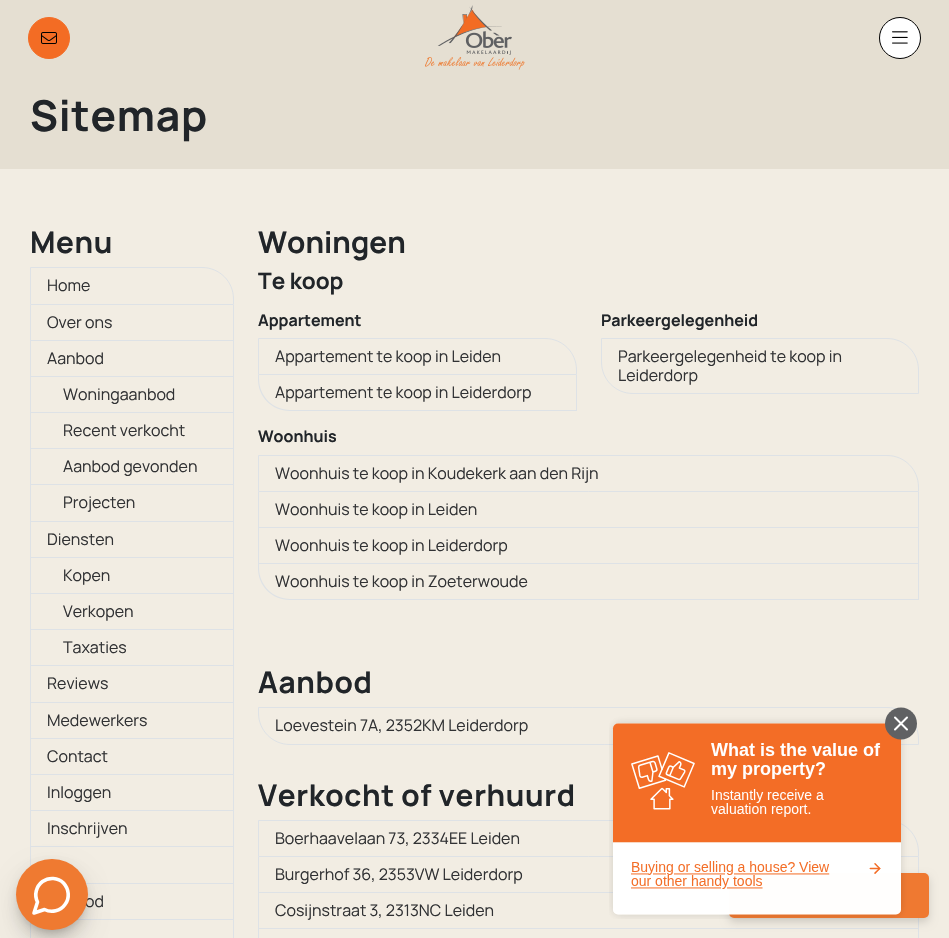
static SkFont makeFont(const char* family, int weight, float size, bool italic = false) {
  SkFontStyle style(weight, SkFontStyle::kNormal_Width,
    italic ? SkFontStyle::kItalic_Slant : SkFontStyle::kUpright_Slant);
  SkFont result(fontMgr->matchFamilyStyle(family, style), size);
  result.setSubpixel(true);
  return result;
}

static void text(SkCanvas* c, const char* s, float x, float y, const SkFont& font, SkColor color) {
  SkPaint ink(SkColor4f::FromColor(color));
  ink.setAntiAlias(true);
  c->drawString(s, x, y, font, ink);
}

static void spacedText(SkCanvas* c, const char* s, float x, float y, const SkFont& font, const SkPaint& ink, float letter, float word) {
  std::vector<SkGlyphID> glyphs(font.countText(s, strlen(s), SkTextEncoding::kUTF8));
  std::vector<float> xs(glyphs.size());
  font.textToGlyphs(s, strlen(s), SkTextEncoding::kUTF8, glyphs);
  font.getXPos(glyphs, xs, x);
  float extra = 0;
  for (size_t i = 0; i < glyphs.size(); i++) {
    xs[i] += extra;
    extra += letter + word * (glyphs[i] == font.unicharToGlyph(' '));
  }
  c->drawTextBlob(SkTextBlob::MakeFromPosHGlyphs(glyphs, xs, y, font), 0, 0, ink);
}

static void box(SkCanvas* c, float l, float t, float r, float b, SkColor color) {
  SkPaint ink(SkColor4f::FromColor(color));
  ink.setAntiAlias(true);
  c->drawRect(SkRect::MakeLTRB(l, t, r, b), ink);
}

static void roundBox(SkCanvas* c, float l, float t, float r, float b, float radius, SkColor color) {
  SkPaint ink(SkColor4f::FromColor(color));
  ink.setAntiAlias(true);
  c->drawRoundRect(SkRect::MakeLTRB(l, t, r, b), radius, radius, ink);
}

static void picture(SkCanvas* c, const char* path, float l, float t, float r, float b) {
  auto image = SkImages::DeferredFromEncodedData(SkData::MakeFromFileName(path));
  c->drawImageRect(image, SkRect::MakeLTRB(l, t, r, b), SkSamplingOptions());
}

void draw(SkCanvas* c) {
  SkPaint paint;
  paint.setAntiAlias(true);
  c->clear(0xfff2ede3);
  box(c, 0, 0, 949, 169, 0xffe5dfd2);
  paint.setColor(0xfff36c24);
  c->drawCircle(49, 38, 20.5f, paint);
  paint.setStyle(SkPaint::kStroke_Style);
  paint.setStrokeWidth(1);
  c->drawCircle(49, 38, 20.5f, paint);
  picture(c, "img_01.png", 41, 32, 57, 44);
  picture(c, "img_02.png", 425, 5, 525, 70);
  paint.setStyle(SkPaint::kFill_Style);
  paint.setColor(0xffffffff);
  c->drawCircle(900, 38, 20.5f, paint);
  paint.setStyle(SkPaint::kStroke_Style);
  paint.setColor(0xff000000);
  c->drawCircle(900, 38, 20.5f, paint);
  picture(c, "img_03.png", 892, 31, 908, 44);
  SkFont face1 = makeFont("Manrope", 700, 42.5f);
  paint.setStyle(SkPaint::kFill_Style);
  paint.setColor(0xff212529);
  spacedText(c, "Sitemap", 30, 131, face1, paint, 0.75f, 0);
  SkFont face2 = makeFont("Manrope", 700, 29.75f);
  spacedText(c, "Menu", 30, 253, face2, paint, 0.6f, 0);
  paint.setStyle(SkPaint::kStroke_Style);
  paint.setColor(0xffdee2e6);
  c->drawPath(SkPathBuilder().moveTo(30.5f, 267.5f).lineTo(202, 267.5f).cubicTo(219.5f, 267.5f, 233.5f, 281.5f, 233.5f, 299).lineTo(233.5f, 304.5f).lineTo(30.5f, 304.5f).close().detach(), paint);
  SkFont face3 = makeFont("Manrope", 400, 16);
  text(c, "Home", 47, 291, face3, 0xff313234);
  box(c, 233, 305, 234, 377, 0xffdee2e6);
  box(c, 30, 340, 234, 341, 0xffdee2e6);
  box(c, 30, 305, 31, 377, 0xffdee2e6);
  text(c, "Over ons", 47, 328, face3, 0xff313234);
  text(c, "Aanbod", 47, 364, face3, 0xff313234);
  c->drawRect(SkRect::MakeLTRB(30.5f, 376.5f, 233.5f, 412.5f), paint);
  text(c, "Woningaanbod", 63, 400, face3, 0xff313234);
  box(c, 233, 413, 234, 522, 0xffdee2e6);
  box(c, 30, 448, 234, 449, 0xffdee2e6);
  box(c, 30, 413, 31, 449, 0xffdee2e6);
  text(c, "Recent verkocht", 63, 436, face3, 0xff313234);
  box(c, 30, 484, 234, 485, 0xffdee2e6);
  box(c, 30, 449, 31, 522, 0xffdee2e6);
  text(c, "Aanbod gevonden", 63, 472, face3, 0xff313234);
  text(c, "Projecten", 63, 508, face3, 0xff313234);
  c->drawRect(SkRect::MakeLTRB(30.5f, 521.5f, 233.5f, 557.5f), paint);
  text(c, "Diensten", 47, 545, face3, 0xff313234);
  c->drawRect(SkRect::MakeLTRB(30.5f, 557.5f, 233.5f, 593.5f), paint);
  text(c, "Kopen", 63, 581, face3, 0xff313234);
  box(c, 233, 594, 234, 666, 0xffdee2e6);
  box(c, 30, 629, 234, 630, 0xffdee2e6);
  box(c, 30, 594, 31, 666, 0xffdee2e6);
  text(c, "Verkopen", 63, 617, face3, 0xff313234);
  text(c, "Taxaties", 63, 653, face3, 0xff313234);
  c->drawRect(SkRect::MakeLTRB(30.5f, 665.5f, 233.5f, 702.5f), paint);
  text(c, "Reviews", 47, 689, face3, 0xff313234);
  box(c, 233, 703, 234, 938, 0xffdee2e6);
  box(c, 30, 738, 234, 739, 0xffdee2e6);
  box(c, 30, 703, 31, 739, 0xffdee2e6);
  text(c, "Medewerkers", 47, 726, face3, 0xff313234);
  box(c, 30, 774, 234, 775, 0xffdee2e6);
  box(c, 30, 739, 31, 775, 0xffdee2e6);
  text(c, "Contact", 47, 762, face3, 0xff313234);
  box(c, 30, 810, 234, 811, 0xffdee2e6);
  box(c, 30, 775, 31, 811, 0xffdee2e6);
  text(c, "Inloggen", 47, 798, face3, 0xff313234);
  box(c, 30, 846, 234, 847, 0xffdee2e6);
  box(c, 30, 811, 31, 867, 0xffdee2e6);
  text(c, "Inschrijven", 47, 834, face3, 0xff313234);
  box(c, 86, 883, 234, 884, 0xffdee2e6);
  box(c, 77, 919, 234, 920, 0xffdee2e6);
  text(c, "od", 85, 907, face3, 0xff313234);
  box(c, 30, 920, 31, 938, 0xffdee2e6);
  text(c, "Woningen", 258, 253, face2, 0xff212529);
  SkFont face4 = makeFont("Manrope", 700, 22.5f);
  text(c, "Te koop", 258, 289, face4, 0xff212529);
  SkFont face5 = makeFont("Manrope", 700, 16);
  text(c, "Appartement", 258, 326, face5, 0xff212529);
  c->drawPath(SkPathBuilder().moveTo(258.5f, 338.5f).lineTo(545, 338.5f).cubicTo(562.5f, 338.5f, 576.5f, 352.5f, 576.5f, 370).lineTo(576.5f, 374.5f).lineTo(258.5f, 374.5f).close().detach(), paint);
  text(c, "Appartement te koop in Leiden", 275, 362, face3, 0xff313234);
  paint.setStyle(SkPaint::kFill_Style);
  c->drawPath(SkPathBuilder(SkPathFillType::kEvenOdd).moveTo(258, 375).lineTo(577, 375).lineTo(577, 411).lineTo(290, 411).cubicTo(272, 411, 258, 397, 258, 379).close().moveTo(259, 375).lineTo(576, 375).lineTo(576, 410).lineTo(290, 410).cubicTo(273, 410, 259, 396, 259, 379).close().detach(), paint);
  text(c, "Appartement te koop in Leiderdorp", 275, 398, face3, 0xff313234);
  text(c, "Parkeergelegenheid", 601, 326, face5, 0xff212529);
  paint.setStyle(SkPaint::kStroke_Style);
  c->drawPath(SkPathBuilder().moveTo(601.5f, 338.5f).lineTo(887, 338.5f).cubicTo(904.5f, 338.5f, 918.5f, 352.5f, 918.5f, 370).lineTo(918.5f, 393.5f).lineTo(633, 393.5f).cubicTo(615.5f, 393.5f, 601.5f, 379.5f, 601.5f, 362).close().detach(), paint);
  text(c, "Parkeergelegenheid te koop in", 618, 362, face3, 0xff313234);
  text(c, "Leiderdorp", 618, 381, face3, 0xff313234);
  text(c, "Woonhuis", 258, 442, face5, 0xff212529);
  c->drawPath(SkPathBuilder().moveTo(258.5f, 455.5f).lineTo(887, 455.5f).cubicTo(904.5f, 455.5f, 918.5f, 469.5f, 918.5f, 487).lineTo(918.5f, 491.5f).lineTo(258.5f, 491.5f).close().detach(), paint);
  text(c, "Woonhuis te koop in Koudekerk aan den Rijn", 275, 479, face3, 0xff313234);
  box(c, 918, 492, 919, 564, 0xffdee2e6);
  box(c, 258, 527, 919, 528, 0xffdee2e6);
  box(c, 258, 492, 259, 528, 0xffdee2e6);
  text(c, "Woonhuis te koop in Leiden", 275, 515, face3, 0xff313234);
  box(c, 258, 563, 919, 564, 0xffdee2e6);
  box(c, 258, 528, 259, 564, 0xffdee2e6);
  text(c, "Woonhuis te koop in Leiderdorp", 275, 551, face3, 0xff313234);
  paint.setStyle(SkPaint::kFill_Style);
  c->drawPath(SkPathBuilder(SkPathFillType::kEvenOdd).moveTo(258, 564).lineTo(919, 564).lineTo(919, 600).lineTo(290, 600).cubicTo(272, 600, 258, 586, 258, 568).close().moveTo(259, 564).lineTo(918, 564).lineTo(918, 599).lineTo(290, 599).cubicTo(273, 599, 259, 585, 259, 568).close().detach(), paint);
  text(c, "Woonhuis te koop in Zoeterwoude", 275, 587, face3, 0xff313234);
  paint.setColor(0xff212529);
  spacedText(c, "Aanbod", 258, 693, face2, paint, 0.6f, 0);
  paint.setStyle(SkPaint::kStroke_Style);
  paint.setColor(0xffdee2e6);
  c->drawPath(SkPathBuilder().moveTo(258.5f, 707.5f).lineTo(887, 707.5f).cubicTo(904.5f, 707.5f, 918.5f, 721.5f, 918.5f, 739).lineTo(918.5f, 744.5f).lineTo(290, 744.5f).cubicTo(272.5f, 744.5f, 258.5f, 730.5f, 258.5f, 713).close().detach(), paint);
  text(c, "Loevestein 7A, 2352KM Leiderdorp", 275, 731, face3, 0xff313234);
  paint.setStyle(SkPaint::kFill_Style);
  paint.setColor(0xff212529);
  spacedText(c, "Verkocht of verhuurd", 258, 806, face2, paint, 0.6f, 0);
  paint.setStyle(SkPaint::kStroke_Style);
  paint.setColor(0xffdee2e6);
  c->drawPath(SkPathBuilder().moveTo(258.5f, 820.5f).lineTo(887, 820.5f).cubicTo(904.5f, 820.5f, 918.5f, 834.5f, 918.5f, 852).lineTo(918.5f, 856.5f).lineTo(258.5f, 856.5f).close().detach(), paint);
  text(c, "Boerhaavelaan 73, 2334EE Leiden", 275, 844, face3, 0xff313234);
  box(c, 918, 857, 919, 873, 0xffdee2e6);
  box(c, 258, 892, 729, 893, 0xffdee2e6);
  box(c, 258, 857, 259, 893, 0xffdee2e6);
  text(c, "Burgerhof 36, 2353VW Leiderdorp", 275, 880, face3, 0xff313234);
  box(c, 918, 918, 919, 938, 0xffdee2e6);
  box(c, 258, 928, 919, 929, 0xffdee2e6);
  box(c, 258, 893, 259, 938, 0xffdee2e6);
  text(c, "Cosijnstraat 3, 2313NC Leiden", 275, 916, face3, 0xff313234);
  paint.setStyle(SkPaint::kFill_Style);
  paint.setColor(0x1a000000);
  paint.setMaskFilter(SkMaskFilter::MakeBlur(kNormal_SkBlurStyle, 5));
  c->drawRoundRect(SkRect::MakeLTRB(22, 873, 82, 932), 29.5f, 29.5f, paint);
  paint.setMaskFilter(nullptr);
  paint.setMaskFilter(SkMaskFilter::MakeBlur(kNormal_SkBlurStyle, 12.5f));
  c->drawRoundRect(SkRect::MakeLTRB(21, 884, 83, 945), 30.5f, 30.5f, paint);
  paint.setMaskFilter(nullptr);
  paint.setMaskFilter(SkMaskFilter::MakeBlur(kNormal_SkBlurStyle, 5));
  c->drawRoundRect(SkRect::MakeLTRB(19, 866, 85, 931), 32.5f, 32.5f, paint);
  paint.setMaskFilter(nullptr);
  paint.setColor(0x26000000);
  paint.setMaskFilter(SkMaskFilter::MakeBlur(kNormal_SkBlurStyle, 12.5f));
  c->drawRoundRect(SkRect::MakeLTRB(21, 872, 83, 933), 30.5f, 30.5f, paint);
  paint.setMaskFilter(nullptr);
  roundBox(c, 16, 859, 88, 930, 35.5f, 0xffef7a31);
  paint.setStyle(SkPaint::kStroke_Style);
  paint.setStrokeWidth(3.6f);
  paint.setStrokeCap(SkPaint::kRound_Cap);
  paint.setStrokeJoin(SkPaint::kRound_Join);
  paint.setColor(0xffffffff);
  c->drawPath(SkPathBuilder().moveTo(44.5f, 909.5f).cubicTo(51.5f, 913, 60.5f, 911, 65, 904.5f).cubicTo(70, 898, 69, 889, 63.5f, 883).cubicTo(58, 877.5f, 49, 877, 42.5f, 881.5f).cubicTo(36, 886.5f, 34, 895, 37.5f, 902).lineTo(34, 913).close().detach(), paint);
  paint.setStyle(SkPaint::kFill_Style);
  paint.setColor(0x26000000);
  paint.setMaskFilter(SkMaskFilter::MakeBlur(kNormal_SkBlurStyle, 4));
  c->drawRoundRect(SkRect::MakeLTRB(729, 877, 929, 922), 5, 5, paint);
  paint.setMaskFilter(nullptr);
  roundBox(c, 729, 873, 929, 918, 5, 0xffef7931);
  picture(c, "img_04.png", 609, 707, 917, 919);
}
